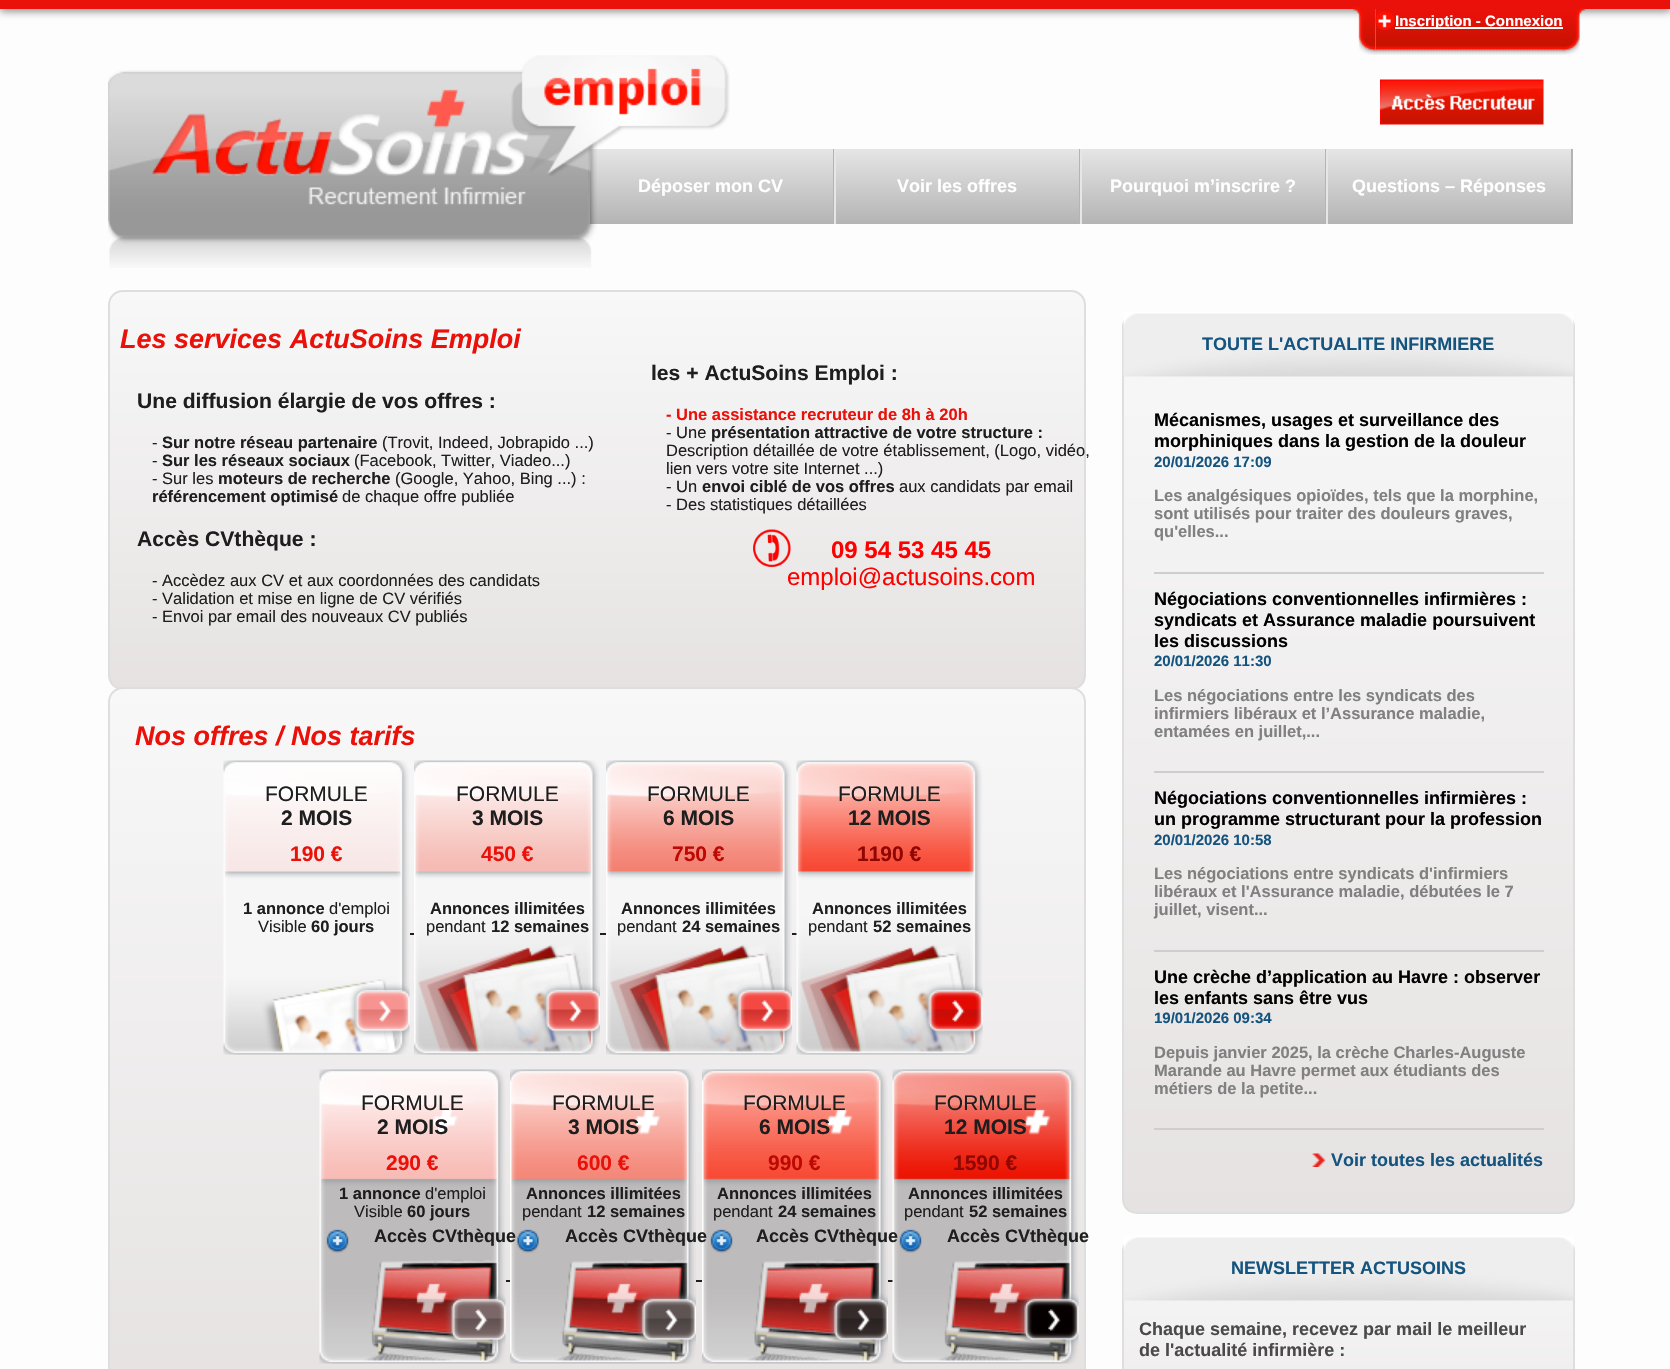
static SkFont makeFont(const char* family, int weight, float size, bool italic = false) {
  SkFontStyle style(weight, SkFontStyle::kNormal_Width,
    italic ? SkFontStyle::kItalic_Slant : SkFontStyle::kUpright_Slant);
  SkFont result(fontMgr->matchFamilyStyle(family, style), size);
  result.setSubpixel(true);
  return result;
}

static void text(SkCanvas* c, const char* s, float x, float y, const SkFont& font, SkColor color) {
  SkPaint ink(SkColor4f::FromColor(color));
  ink.setAntiAlias(true);
  c->drawString(s, x, y, font, ink);
}

static void box(SkCanvas* c, float l, float t, float r, float b, SkColor color) {
  SkPaint ink(SkColor4f::FromColor(color));
  ink.setAntiAlias(true);
  c->drawRect(SkRect::MakeLTRB(l, t, r, b), ink);
}

static void picture(SkCanvas* c, const char* path, float l, float t, float r, float b) {
  auto image = SkImages::DeferredFromEncodedData(SkData::MakeFromFileName(path));
  c->drawImageRect(image, SkRect::MakeLTRB(l, t, r, b), SkSamplingOptions());
}

void draw(SkCanvas* c) {
  SkPaint paint;
  paint.setAntiAlias(true);
  c->clear(0xfffdfdfd);
  paint.setColor(0x80000000);
  paint.setMaskFilter(SkMaskFilter::MakeBlur(kNormal_SkBlurStyle, 4));
  c->drawRect(SkRect::MakeLTRB(0, 2, 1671, 11), paint);
  paint.setMaskFilter(nullptr);
  box(c, 0, 0, 1670, 9, 0xffea110a);
  picture(c, "img_01.png", 1353, 7, 1376, 55);
  picture(c, "img_02.png", 1375, 9, 1563, 55);
  picture(c, "img_03.png", 1375, 11, 1395, 30);
  box(c, 1395, 27, 1563, 29, 0xffffffff);
  SkFont face1 = makeFont("Liberation Sans", 700, 15);
  text(c, "Inscription - Connexion", 1395, 26, face1, 0xffffffff);
  picture(c, "img_04.png", 1563, 7, 1586, 55);
  box(c, 588, 149, 590, 224, 0xffe6e6e6);
  {
    const SkColor colors[] = {0xffe6e6e6, 0xffb4b4b4};
    const float stops[] = {0, 1};
    const SkPoint ends[] = {{711, 148}, {711, 224}};
    paint.setShader(SkGradientShader::MakeLinear(ends, colors, stops, 2, SkTileMode::kClamp));
    paint.setAlpha(255);
  }
  c->drawRect(SkRect::MakeLTRB(590, 149, 833, 224), paint);
  picture(c, "img_05.png", 108, 70, 597, 268);
  picture(c, "img_06.png", 511, 55, 730, 176);
  picture(c, "img_07.png", 1380, 79, 1544, 125);
  box(c, 833, 149, 834, 224, 0xffb4b4b4);
  SkFont face2 = makeFont("Liberation Sans", 700, 18);
  text(c, "Déposer mon CV", 638, 192, face2, 0xffffffff);
  box(c, 1079, 149, 1080, 224, 0xffb4b4b4);
  box(c, 834, 149, 836, 224, 0xffe6e6e6);
  {
    const SkColor colors[] = {0xffe6e6e6, 0xffb4b4b4};
    const float stops[] = {0, 1};
    const SkPoint ends[] = {{957, 148}, {957, 224}};
    paint.setShader(SkGradientShader::MakeLinear(ends, colors, stops, 2, SkTileMode::kClamp));
    paint.setAlpha(255);
  }
  c->drawRect(SkRect::MakeLTRB(836, 149, 1079, 224), paint);
  text(c, "Voir les offres", 897, 192, face2, 0xffffffff);
  box(c, 1325, 149, 1326, 224, 0xffb4b4b4);
  box(c, 1080, 149, 1082, 224, 0xffe6e6e6);
  {
    const SkColor colors[] = {0xffe6e6e6, 0xffb4b4b4};
    const float stops[] = {0, 1};
    const SkPoint ends[] = {{1203, 148}, {1203, 224}};
    paint.setShader(SkGradientShader::MakeLinear(ends, colors, stops, 2, SkTileMode::kClamp));
    paint.setAlpha(255);
  }
  c->drawRect(SkRect::MakeLTRB(1082, 149, 1325, 224), paint);
  text(c, "Pourquoi m’inscrire ?", 1110, 192, face2, 0xffffffff);
  box(c, 1571, 149, 1573, 224, 0xffb4b4b4);
  box(c, 1326, 149, 1328, 224, 0xffe6e6e6);
  {
    const SkColor colors[] = {0xffe6e6e6, 0xffb4b4b4};
    const float stops[] = {0, 1};
    const SkPoint ends[] = {{1449, 148}, {1449, 224}};
    paint.setShader(SkGradientShader::MakeLinear(ends, colors, stops, 2, SkTileMode::kClamp));
    paint.setAlpha(255);
  }
  c->drawRect(SkRect::MakeLTRB(1328, 149, 1571, 224), paint);
  text(c, "Questions – Réponses", 1352, 192, face2, 0xffffffff);
  c->save();
  c->clipPath(SkPathBuilder().moveTo(123, 290).lineTo(1071, 290).cubicTo(1079.5f, 290, 1086, 296.5f, 1086, 305).lineTo(1086, 675).cubicTo(1086, 683.5f, 1079.5f, 690, 1071, 690).lineTo(123, 690).cubicTo(114.5f, 690, 108, 683.5f, 108, 675).lineTo(108, 305).cubicTo(108, 296.5f, 114.5f, 290, 123, 290).close().detach(), true);
  {
    const SkColor colors[] = {0xfff8f8f8, 0xffe6e2e2};
    const float stops[] = {0, 1};
    const SkPoint ends[] = {{597, 291}, {597, 689}};
    paint.setShader(SkGradientShader::MakeLinear(ends, colors, stops, 2, SkTileMode::kClamp));
    paint.setAlpha(255);
  }
  c->drawRect(SkRect::MakeLTRB(110, 291, 1085, 689), paint);
  c->restore();
  paint.setStyle(SkPaint::kStroke_Style);
  paint.setStrokeWidth(2);
  paint.setShader(nullptr);
  paint.setColor(0xffdedede);
  c->drawRoundRect(SkRect::MakeLTRB(109, 291, 1085, 689), 14, 14, paint);
  SkFont face3 = makeFont("Liberation Sans", 700, 27, true);
  text(c, "Les services ActuSoins Emploi", 120, 348, face3, 0xffea110a);
  SkFont face4 = makeFont("Liberation Sans", 700, 21.1f);
  text(c, "Une diffusion élargie de vos offres :", 137, 408, face4, 0xff1e1e1e);
  SkFont face5 = makeFont("Liberation Sans", 400, 16.5f);
  text(c, "-", 152, 448, face5, 0xff1e1e1e);
  SkFont face6 = makeFont("Liberation Sans", 700, 16.5f);
  text(c, "Sur notre réseau partenaire", 162, 448, face6, 0xff1e1e1e);
  text(c, "(Trovit, Indeed, Jobrapido ...)", 382, 448, face5, 0xff1e1e1e);
  text(c, "-", 152, 466, face5, 0xff1e1e1e);
  text(c, "Sur les réseaux sociaux", 162, 466, face6, 0xff1e1e1e);
  text(c, "(Facebook, Twitter, Viadeo...)", 354, 466, face5, 0xff1e1e1e);
  text(c, "- Sur les", 152, 484, face5, 0xff1e1e1e);
  text(c, "moteurs de recherche", 218, 484, face6, 0xff1e1e1e);
  text(c, "(Google, Yahoo, Bing ...) :", 395, 484, face5, 0xff1e1e1e);
  text(c, "référencement optimisé", 152, 502, face6, 0xff1e1e1e);
  text(c, "de chaque offre publiée", 342, 502, face5, 0xff1e1e1e);
  text(c, "Accès CVthèque :", 137, 546, face4, 0xff1e1e1e);
  text(c, "- Accèdez aux CV et aux coordonnées des candidats", 152, 586, face5, 0xff1e1e1e);
  text(c, "- Validation et mise en ligne de CV vérifiés", 152, 604, face5, 0xff1e1e1e);
  text(c, "- Envoi par email des nouveaux CV publiés", 152, 622, face5, 0xff1e1e1e);
  text(c, "les + ActuSoins Emploi :", 651, 380, face4, 0xff1e1e1e);
  text(c, "- Une assistance recruteur de 8h à 20h", 666, 420, face6, 0xffea110a);
  text(c, "- Une", 666, 438, face5, 0xff1e1e1e);
  text(c, "présentation attractive de votre structure :", 711, 438, face6, 0xff1e1e1e);
  text(c, "Description détaillée de votre établissement, (Logo, vidéo,", 666, 456, face5, 0xff1e1e1e);
  text(c, "lien vers votre site Internet ...)", 666, 474, face5, 0xff1e1e1e);
  text(c, "- Un", 666, 492, face5, 0xff1e1e1e);
  text(c, "envoi ciblé de vos offres", 702, 492, face6, 0xff1e1e1e);
  text(c, "aux candidats par email", 899, 492, face5, 0xff1e1e1e);
  text(c, "- Des statistiques détaillées", 666, 510, face5, 0xff1e1e1e);
  picture(c, "img_08.png", 753, 529, 791, 567);
  SkFont face7 = makeFont("Liberation Sans", 700, 24);
  text(c, "09 54 53 45 45", 831, 558, face7, 0xffff0000);
  SkFont face8 = makeFont("Liberation Sans", 400, 24);
  text(c, "emploi@actusoins.com", 787, 585, face8, 0xffff0000);
  c->save();
  c->clipPath(SkPathBuilder().moveTo(123, 687).lineTo(1071, 687).cubicTo(1079.5f, 687, 1086, 693.5f, 1086, 702).lineTo(1086, 1377).cubicTo(1086, 1385.5f, 1079.5f, 1392, 1071, 1392).lineTo(123, 1392).cubicTo(114.5f, 1392, 108, 1385.5f, 108, 1377).lineTo(108, 702).cubicTo(108, 693.5f, 114.5f, 687, 123, 687).close().detach(), true);
  paint.setStyle(SkPaint::kFill_Style);
  {
    const SkColor colors[] = {0xfff8f8f8, 0xffe6e2e2};
    const float stops[] = {0, 1};
    const SkPoint ends[] = {{597, 689}, {597, 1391}};
    paint.setShader(SkGradientShader::MakeLinear(ends, colors, stops, 2, SkTileMode::kClamp));
    paint.setAlpha(255);
  }
  c->drawRect(SkRect::MakeLTRB(110, 689, 1085, 1369), paint);
  c->restore();
  paint.setStyle(SkPaint::kStroke_Style);
  paint.setShader(nullptr);
  paint.setColor(0xffdedede);
  c->drawRoundRect(SkRect::MakeLTRB(109, 688, 1085, 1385), 14, 14, paint);
  text(c, "Nos offres / Nos tarifs", 135, 745, face3, 0xffea110a);
  picture(c, "img_09.png", 223, 760, 410, 1055);
  SkFont face9 = makeFont("Liberation Sans", 400, 21);
  text(c, "FORMULE", 265, 801, face9, 0xff1e1e1e);
  SkFont face10 = makeFont("Liberation Sans", 700, 21);
  text(c, "2 MOIS", 281, 825, face10, 0xff1e1e1e);
  text(c, "190 €", 290, 861, face10, 0xffea110a);
  text(c, "1 annonce", 243, 914, face6, 0xff1e1e1e);
  text(c, "d'emploi", 329, 914, face5, 0xff1e1e1e);
  text(c, "Visible", 258, 932, face5, 0xff1e1e1e);
  text(c, "60 jours", 311, 932, face6, 0xff1e1e1e);
  box(c, 410, 933, 415, 935, 0xff1e1e1e);
  picture(c, "img_10.png", 414, 760, 600, 1055);
  text(c, "FORMULE", 456, 801, face9, 0xff1e1e1e);
  text(c, "3 MOIS", 472, 825, face10, 0xff1e1e1e);
  text(c, "450 €", 481, 861, face10, 0xffea110a);
  text(c, "Annonces illimitées", 430, 914, face6, 0xff1e1e1e);
  text(c, "pendant", 426, 932, face5, 0xff1e1e1e);
  text(c, "12 semaines", 491, 932, face6, 0xff1e1e1e);
  box(c, 600, 933, 606, 935, 0xff1e1e1e);
  picture(c, "img_11.png", 606, 760, 792, 1055);
  text(c, "FORMULE", 647, 801, face9, 0xff1e1e1e);
  text(c, "6 MOIS", 663, 825, face10, 0xff1e1e1e);
  text(c, "750 €", 672, 861, face10, 0xffbe0802);
  text(c, "Annonces illimitées", 621, 914, face6, 0xff1e1e1e);
  text(c, "pendant", 617, 932, face5, 0xff1e1e1e);
  text(c, "24 semaines", 682, 932, face6, 0xff1e1e1e);
  box(c, 792, 933, 797, 935, 0xff1e1e1e);
  picture(c, "img_12.png", 796, 760, 983, 1055);
  text(c, "FORMULE", 838, 801, face9, 0xff1e1e1e);
  text(c, "12 MOIS", 848, 825, face10, 0xff1e1e1e);
  text(c, "1190 €", 857, 861, face10, 0xff900602);
  text(c, "Annonces illimitées", 812, 914, face6, 0xff1e1e1e);
  text(c, "pendant", 808, 932, face5, 0xff1e1e1e);
  text(c, "52 semaines", 873, 932, face6, 0xff1e1e1e);
  picture(c, "img_13.png", 319, 1069, 506, 1364);
  text(c, "FORMULE", 361, 1110, face9, 0xff1e1e1e);
  text(c, "2 MOIS", 377, 1134, face10, 0xff1e1e1e);
  text(c, "290 €", 386, 1170, face10, 0xffea110a);
  text(c, "1 annonce", 339, 1199, face6, 0xff1e1e1e);
  text(c, "d'emploi", 425, 1199, face5, 0xff1e1e1e);
  text(c, "Visible", 354, 1217, face5, 0xff1e1e1e);
  text(c, "60 jours", 407, 1217, face6, 0xff1e1e1e);
  box(c, 506, 1280, 511, 1282, 0xff1e1e1e);
  picture(c, "img_14.png", 510, 1069, 696, 1364);
  text(c, "Accès CVthèque", 374, 1242, face2, 0xff1e1e1e);
  text(c, "FORMULE", 552, 1110, face9, 0xff1e1e1e);
  text(c, "3 MOIS", 568, 1134, face10, 0xff1e1e1e);
  text(c, "600 €", 577, 1170, face10, 0xffea110a);
  text(c, "Annonces illimitées", 526, 1199, face6, 0xff1e1e1e);
  text(c, "pendant", 522, 1217, face5, 0xff1e1e1e);
  text(c, "12 semaines", 587, 1217, face6, 0xff1e1e1e);
  picture(c, "img_15.png", 702, 1069, 888, 1364);
  text(c, "Accès CVthèque", 565, 1242, face2, 0xff1e1e1e);
  box(c, 696, 1280, 702, 1282, 0xff1e1e1e);
  text(c, "FORMULE", 743, 1110, face9, 0xff1e1e1e);
  text(c, "6 MOIS", 759, 1134, face10, 0xff1e1e1e);
  text(c, "990 €", 768, 1170, face10, 0xffbe0802);
  text(c, "Annonces illimitées", 717, 1199, face6, 0xff1e1e1e);
  text(c, "pendant", 713, 1217, face5, 0xff1e1e1e);
  text(c, "24 semaines", 778, 1217, face6, 0xff1e1e1e);
  box(c, 888, 1280, 893, 1282, 0xff1e1e1e);
  picture(c, "img_16.png", 892, 1069, 1079, 1364);
  text(c, "Accès CVthèque", 756, 1242, face2, 0xff1e1e1e);
  text(c, "FORMULE", 934, 1110, face9, 0xff1e1e1e);
  text(c, "12 MOIS", 944, 1134, face10, 0xff1e1e1e);
  text(c, "1590 €", 953, 1170, face10, 0xff900602);
  text(c, "Annonces illimitées", 908, 1199, face6, 0xff1e1e1e);
  text(c, "pendant", 904, 1217, face5, 0xff1e1e1e);
  text(c, "52 semaines", 969, 1217, face6, 0xff1e1e1e);
  text(c, "Accès CVthèque", 947, 1242, face2, 0xff1e1e1e);
  c->save();
  c->clipPath(SkPathBuilder().moveTo(1137, 312).lineTo(1560, 312).cubicTo(1568.5f, 312, 1575, 318.5f, 1575, 327).lineTo(1575, 1199).cubicTo(1575, 1207.5f, 1568.5f, 1214, 1560, 1214).lineTo(1137, 1214).cubicTo(1128.5f, 1214, 1122, 1207.5f, 1122, 1199).lineTo(1122, 327).cubicTo(1122, 318.5f, 1128.5f, 312, 1137, 312).close().detach(), true);
  paint.setStyle(SkPaint::kFill_Style);
  {
    const SkColor colors[] = {0xfff8f8f8, 0xffe6e2e2};
    const float stops[] = {0, 1};
    const SkPoint ends[] = {{1349, 314}, {1349, 1212}};
    paint.setShader(SkGradientShader::MakeLinear(ends, colors, stops, 2, SkTileMode::kClamp));
    paint.setAlpha(255);
  }
  c->drawRect(SkRect::MakeLTRB(1124, 319, 1574, 1212), paint);
  c->restore();
  paint.setStyle(SkPaint::kStroke_Style);
  paint.setShader(nullptr);
  paint.setColor(0xffdedede);
  c->drawRoundRect(SkRect::MakeLTRB(1123, 313, 1574, 1213), 14, 14, paint);
  picture(c, "img_17.png", 1123, 312, 1574, 377);
  text(c, "TOUTE L'ACTUALITE INFIRMIERE", 1202, 350, face2, 0xff14547f);
  box(c, 1154, 572, 1544, 574, 0xffcecece);
  text(c, "Mécanismes, usages et surveillance des", 1154, 426, face2, 0xff000000);
  text(c, "morphiniques dans la gestion de la douleur", 1154, 447, face2, 0xff000000);
  text(c, "20/01/2026 17:09", 1154, 467, face1, 0xff14547f);
  text(c, "Les analgésiques opioïdes, tels que la morphine,", 1154, 501, face6, 0xff808080);
  text(c, "sont utilisés pour traiter des douleurs graves,", 1154, 519, face6, 0xff808080);
  text(c, "qu'elles...", 1154, 537, face6, 0xff808080);
  box(c, 1154, 771, 1544, 773, 0xffcecece);
  text(c, "Négociations conventionnelles infirmières :", 1154, 605, face2, 0xff000000);
  text(c, "syndicats et Assurance maladie poursuivent", 1154, 626, face2, 0xff000000);
  text(c, "les discussions", 1154, 647, face2, 0xff000000);
  text(c, "20/01/2026 11:30", 1154, 666, face1, 0xff14547f);
  text(c, "Les négociations entre les syndicats des", 1154, 701, face6, 0xff808080);
  text(c, "infirmiers libéraux et l’Assurance maladie,", 1154, 719, face6, 0xff808080);
  text(c, "entamées en juillet,...", 1154, 737, face6, 0xff808080);
  box(c, 1154, 950, 1544, 952, 0xffcecece);
  text(c, "Négociations conventionnelles infirmières :", 1154, 804, face2, 0xff000000);
  text(c, "un programme structurant pour la profession", 1154, 825, face2, 0xff000000);
  text(c, "20/01/2026 10:58", 1154, 845, face1, 0xff14547f);
  text(c, "Les négociations entre syndicats d'infirmiers", 1154, 879, face6, 0xff808080);
  text(c, "libéraux et l'Assurance maladie, débutées le 7", 1154, 897, face6, 0xff808080);
  text(c, "juillet, visent...", 1154, 915, face6, 0xff808080);
  box(c, 1154, 1128, 1544, 1130, 0xffcecece);
  text(c, "Une crèche d’application au Havre : observer", 1154, 983, face2, 0xff000000);
  text(c, "les enfants sans être vus", 1154, 1004, face2, 0xff000000);
  text(c, "19/01/2026 09:34", 1154, 1023, face1, 0xff14547f);
  text(c, "Depuis janvier 2025, la crèche Charles-Auguste", 1154, 1058, face6, 0xff808080);
  text(c, "Marande au Havre permet aux étudiants des", 1154, 1076, face6, 0xff808080);
  text(c, "métiers de la petite...", 1154, 1094, face6, 0xff808080);
  picture(c, "img_18.png", 1312, 1153, 1326, 1167);
  text(c, "Voir toutes les actualités", 1331, 1166, face2, 0xff14547f);
  c->save();
  c->clipPath(SkPathBuilder().moveTo(1137, 1236).lineTo(1560, 1236).cubicTo(1568.5f, 1236, 1575, 1242.5f, 1575, 1251).lineTo(1575, 1529).cubicTo(1575, 1537.5f, 1568.5f, 1544, 1560, 1544).lineTo(1137, 1544).cubicTo(1128.5f, 1544, 1122, 1537.5f, 1122, 1529).lineTo(1122, 1251).cubicTo(1122, 1242.5f, 1128.5f, 1236, 1137, 1236).close().detach(), true);
  paint.setStyle(SkPaint::kFill_Style);
  {
    const SkColor colors[] = {0xfff8f8f8, 0xffe6e2e2};
    const float stops[] = {0, 1};
    const SkPoint ends[] = {{1349, 1238}, {1349, 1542}};
    paint.setShader(SkGradientShader::MakeLinear(ends, colors, stops, 2, SkTileMode::kClamp));
    paint.setAlpha(255);
  }
  c->drawRect(SkRect::MakeLTRB(1124, 1243, 1574, 1369), paint);
  c->restore();
  paint.setStyle(SkPaint::kStroke_Style);
  paint.setShader(nullptr);
  paint.setColor(0xffdedede);
  c->drawRoundRect(SkRect::MakeLTRB(1123, 1237, 1574, 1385), 14, 14, paint);
  picture(c, "img_19.png", 1123, 1236, 1574, 1301);
  text(c, "NEWSLETTER ACTUSOINS", 1231, 1274, face2, 0xff14547f);
  text(c, "Chaque semaine, recevez par mail le meilleur", 1139, 1335, face2, 0xff4a4a4a);
  text(c, "de l'actualité infirmière :", 1139, 1356, face2, 0xff4a4a4a);
}
